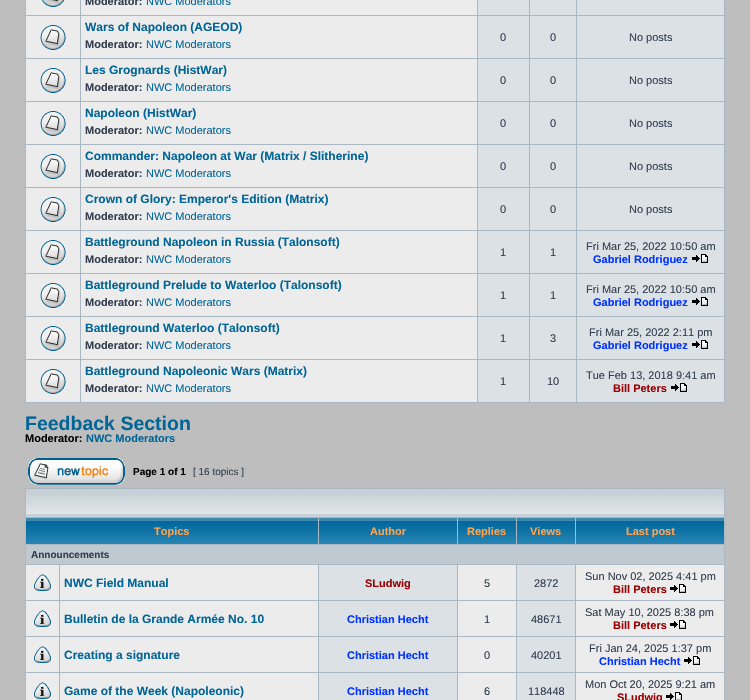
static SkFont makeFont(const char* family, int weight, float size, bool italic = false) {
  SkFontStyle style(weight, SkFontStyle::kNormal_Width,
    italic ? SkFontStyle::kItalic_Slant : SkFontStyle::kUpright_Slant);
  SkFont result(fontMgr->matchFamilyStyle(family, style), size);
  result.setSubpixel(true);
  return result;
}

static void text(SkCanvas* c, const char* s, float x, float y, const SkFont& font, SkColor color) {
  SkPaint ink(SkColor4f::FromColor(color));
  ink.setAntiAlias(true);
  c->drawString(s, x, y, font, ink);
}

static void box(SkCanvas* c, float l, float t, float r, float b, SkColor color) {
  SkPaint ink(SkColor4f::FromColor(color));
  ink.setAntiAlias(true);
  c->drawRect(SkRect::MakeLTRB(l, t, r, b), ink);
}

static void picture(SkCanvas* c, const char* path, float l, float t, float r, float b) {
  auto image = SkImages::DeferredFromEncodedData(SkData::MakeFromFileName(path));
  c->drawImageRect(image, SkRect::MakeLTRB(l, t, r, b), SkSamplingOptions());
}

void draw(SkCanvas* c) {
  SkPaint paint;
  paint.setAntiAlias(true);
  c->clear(0xffbebebe);
  box(c, 25, 0, 725, 403, 0xffa9b8c2);
  box(c, 26, 0, 80, 15, 0xffececec);
  picture(c, "img_01.png", 42, 0, 65, 7);
  box(c, 81, 0, 477, 15, 0xffececec);
  SkFont face1 = makeFont("Liberation Sans", 700, 11);
  text(c, "Moderator:", 85, 5, face1, 0xff323d4f);
  SkFont face2 = makeFont("Liberation Sans", 400, 11);
  text(c, "NWC Moderators", 146, 5, face2, 0xff006597);
  box(c, 478, 0, 529, 15, 0xffdce1e5);
  box(c, 530, 0, 576, 15, 0xffdce1e5);
  box(c, 577, 0, 724, 15, 0xffdce1e5);
  box(c, 26, 16, 80, 58, 0xffececec);
  picture(c, "img_02.png", 40, 25, 66, 50);
  box(c, 81, 16, 477, 58, 0xffececec);
  SkFont face3 = makeFont("Liberation Sans", 700, 12);
  text(c, "Wars of Napoleon (AGEOD)", 85, 31, face3, 0xff006597);
  text(c, "Moderator:", 85, 48, face1, 0xff323d4f);
  text(c, "NWC Moderators", 146, 48, face2, 0xff006597);
  box(c, 478, 16, 529, 58, 0xffdce1e5);
  text(c, "0", 500, 41, face2, 0xff323d4f);
  box(c, 530, 16, 576, 58, 0xffdce1e5);
  text(c, "0", 550, 41, face2, 0xff323d4f);
  box(c, 577, 16, 724, 58, 0xffdce1e5);
  text(c, "No posts", 629, 41, face2, 0xff323d4f);
  box(c, 26, 59, 80, 101, 0xffececec);
  picture(c, "img_02.png", 40, 68, 66, 93);
  box(c, 81, 59, 477, 101, 0xffececec);
  text(c, "Les Grognards (HistWar)", 85, 74, face3, 0xff006597);
  text(c, "Moderator:", 85, 91, face1, 0xff323d4f);
  text(c, "NWC Moderators", 146, 91, face2, 0xff006597);
  box(c, 478, 59, 529, 101, 0xffdce1e5);
  text(c, "0", 500, 84, face2, 0xff323d4f);
  box(c, 530, 59, 576, 101, 0xffdce1e5);
  text(c, "0", 550, 84, face2, 0xff323d4f);
  box(c, 577, 59, 724, 101, 0xffdce1e5);
  text(c, "No posts", 629, 84, face2, 0xff323d4f);
  box(c, 26, 102, 80, 144, 0xffececec);
  picture(c, "img_02.png", 40, 111, 66, 136);
  box(c, 81, 102, 477, 144, 0xffececec);
  text(c, "Napoleon (HistWar)", 85, 117, face3, 0xff006597);
  text(c, "Moderator:", 85, 134, face1, 0xff323d4f);
  text(c, "NWC Moderators", 146, 134, face2, 0xff006597);
  box(c, 478, 102, 529, 144, 0xffdce1e5);
  text(c, "0", 500, 127, face2, 0xff323d4f);
  box(c, 530, 102, 576, 144, 0xffdce1e5);
  text(c, "0", 550, 127, face2, 0xff323d4f);
  box(c, 577, 102, 724, 144, 0xffdce1e5);
  text(c, "No posts", 629, 127, face2, 0xff323d4f);
  box(c, 26, 145, 80, 187, 0xffececec);
  picture(c, "img_02.png", 40, 154, 66, 179);
  box(c, 81, 145, 477, 187, 0xffececec);
  text(c, "Commander: Napoleon at War (Matrix / Slitherine)", 85, 160, face3, 0xff006597);
  text(c, "Moderator:", 85, 177, face1, 0xff323d4f);
  text(c, "NWC Moderators", 146, 177, face2, 0xff006597);
  box(c, 478, 145, 529, 187, 0xffdce1e5);
  text(c, "0", 500, 170, face2, 0xff323d4f);
  box(c, 530, 145, 576, 187, 0xffdce1e5);
  text(c, "0", 550, 170, face2, 0xff323d4f);
  box(c, 577, 145, 724, 187, 0xffdce1e5);
  text(c, "No posts", 629, 170, face2, 0xff323d4f);
  box(c, 26, 188, 80, 230, 0xffececec);
  picture(c, "img_02.png", 40, 197, 66, 222);
  box(c, 81, 188, 477, 230, 0xffececec);
  text(c, "Crown of Glory: Emperor's Edition (Matrix)", 85, 203, face3, 0xff006597);
  text(c, "Moderator:", 85, 220, face1, 0xff323d4f);
  text(c, "NWC Moderators", 146, 220, face2, 0xff006597);
  box(c, 478, 188, 529, 230, 0xffdce1e5);
  text(c, "0", 500, 213, face2, 0xff323d4f);
  box(c, 530, 188, 576, 230, 0xffdce1e5);
  text(c, "0", 550, 213, face2, 0xff323d4f);
  box(c, 577, 188, 724, 230, 0xffdce1e5);
  text(c, "No posts", 629, 213, face2, 0xff323d4f);
  box(c, 26, 231, 80, 273, 0xffececec);
  picture(c, "img_02.png", 40, 240, 66, 265);
  box(c, 81, 231, 477, 273, 0xffececec);
  text(c, "Battleground Napoleon in Russia (Talonsoft)", 85, 246, face3, 0xff006597);
  text(c, "Moderator:", 85, 263, face1, 0xff323d4f);
  text(c, "NWC Moderators", 146, 263, face2, 0xff006597);
  box(c, 478, 231, 529, 273, 0xffdce1e5);
  text(c, "1", 500, 256, face2, 0xff323d4f);
  box(c, 530, 231, 576, 273, 0xffdce1e5);
  text(c, "1", 550, 256, face2, 0xff323d4f);
  box(c, 577, 231, 724, 273, 0xffdce1e5);
  text(c, "Fri Mar 25, 2022 10:50 am", 586, 250, face2, 0xff323d4f);
  text(c, "Gabriel Rodriguez", 593, 263, face1, 0xff0033ff);
  picture(c, "img_03.png", 692, 254, 708, 263);
  box(c, 26, 274, 80, 316, 0xffececec);
  picture(c, "img_02.png", 40, 283, 66, 308);
  box(c, 81, 274, 477, 316, 0xffececec);
  text(c, "Battleground Prelude to Waterloo (Talonsoft)", 85, 289, face3, 0xff006597);
  text(c, "Moderator:", 85, 306, face1, 0xff323d4f);
  text(c, "NWC Moderators", 146, 306, face2, 0xff006597);
  box(c, 478, 274, 529, 316, 0xffdce1e5);
  text(c, "1", 500, 299, face2, 0xff323d4f);
  box(c, 530, 274, 576, 316, 0xffdce1e5);
  text(c, "1", 550, 299, face2, 0xff323d4f);
  box(c, 577, 274, 724, 316, 0xffdce1e5);
  text(c, "Fri Mar 25, 2022 10:50 am", 586, 293, face2, 0xff323d4f);
  text(c, "Gabriel Rodriguez", 593, 306, face1, 0xff0033ff);
  picture(c, "img_03.png", 692, 297, 708, 306);
  box(c, 26, 317, 80, 359, 0xffececec);
  picture(c, "img_02.png", 40, 326, 66, 351);
  box(c, 81, 317, 477, 359, 0xffececec);
  text(c, "Battleground Waterloo (Talonsoft)", 85, 332, face3, 0xff006597);
  text(c, "Moderator:", 85, 349, face1, 0xff323d4f);
  text(c, "NWC Moderators", 146, 349, face2, 0xff006597);
  box(c, 478, 317, 529, 359, 0xffdce1e5);
  text(c, "1", 500, 342, face2, 0xff323d4f);
  box(c, 530, 317, 576, 359, 0xffdce1e5);
  text(c, "3", 550, 342, face2, 0xff323d4f);
  box(c, 577, 317, 724, 359, 0xffdce1e5);
  text(c, "Fri Mar 25, 2022 2:11 pm", 589, 336, face2, 0xff323d4f);
  text(c, "Gabriel Rodriguez", 593, 349, face1, 0xff0033ff);
  picture(c, "img_03.png", 692, 340, 708, 349);
  box(c, 26, 360, 80, 402, 0xffececec);
  picture(c, "img_02.png", 40, 369, 66, 394);
  box(c, 81, 360, 477, 402, 0xffececec);
  text(c, "Battleground Napoleonic Wars (Matrix)", 85, 375, face3, 0xff006597);
  text(c, "Moderator:", 85, 392, face1, 0xff323d4f);
  text(c, "NWC Moderators", 146, 392, face2, 0xff006597);
  box(c, 478, 360, 529, 402, 0xffdce1e5);
  text(c, "1", 500, 385, face2, 0xff323d4f);
  box(c, 530, 360, 576, 402, 0xffdce1e5);
  text(c, "10", 547, 385, face2, 0xff323d4f);
  box(c, 577, 360, 724, 402, 0xffdce1e5);
  text(c, "Tue Feb 13, 2018 9:41 am", 586, 379, face2, 0xff323d4f);
  text(c, "Bill Peters", 613, 392, face1, 0xff990000);
  picture(c, "img_03.png", 671, 383, 687, 392);
  SkFont face4 = makeFont("Liberation Sans", 700, 19.5f);
  text(c, "Feedback Section", 25, 430, face4, 0xff006597);
  text(c, "Moderator:", 25, 442, face1, 0xff000000);
  text(c, "NWC Moderators", 86, 442, face1, 0xff006597);
  picture(c, "img_04.png", 28, 458, 125, 485);
  SkFont face5 = makeFont("Liberation Sans", 700, 10);
  text(c, "Page 1 of 1", 133, 475, face5, 0xff000000);
  SkFont face6 = makeFont("Liberation Sans", 400, 10);
  text(c, "[ 16 topics ]", 193, 475, face6, 0xff323d4f);
  box(c, 25, 488, 725, 700, 0xffa9b8c2);
  box(c, 26, 489, 724, 517, 0xffc7d0d7);
  picture(c, "img_05.png", 26, 495, 724, 514);
  picture(c, "img_06.png", 26, 518, 318, 544);
  text(c, "Topics", 154, 535, face1, 0xffffa34f);
  picture(c, "img_07.png", 319, 518, 457, 544);
  text(c, "Author", 370, 535, face1, 0xffffa34f);
  picture(c, "img_08.png", 458, 518, 516, 544);
  text(c, "Replies", 467, 535, face1, 0xffffa34f);
  picture(c, "img_08.png", 517, 518, 575, 544);
  text(c, "Views", 530, 535, face1, 0xffffa34f);
  picture(c, "img_09.png", 576, 518, 724, 544);
  text(c, "Last post", 626, 535, face1, 0xffffa34f);
  box(c, 26, 545, 724, 564, 0xffc0c8d0);
  text(c, "Announcements", 31, 558, face5, 0xff323d4f);
  box(c, 26, 565, 59, 600, 0xffececec);
  picture(c, "img_10.png", 33, 574, 52, 591);
  box(c, 60, 565, 318, 600, 0xffececec);
  text(c, "NWC Field Manual", 64, 587, face3, 0xff006597);
  box(c, 319, 565, 457, 600, 0xffdce1e5);
  text(c, "SLudwig", 365, 587, face1, 0xff990000);
  box(c, 458, 565, 516, 600, 0xffececec);
  text(c, "5", 484, 587, face2, 0xff323d4f);
  box(c, 517, 565, 575, 600, 0xffdce1e5);
  text(c, "2872", 534, 587, face2, 0xff323d4f);
  box(c, 576, 565, 724, 600, 0xffececec);
  text(c, "Sun Nov 02, 2025 4:41 pm", 585, 580, face2, 0xff323d4f);
  text(c, "Bill Peters", 613, 593, face1, 0xff990000);
  picture(c, "img_11.png", 670, 584, 686, 593);
  box(c, 26, 601, 59, 636, 0xffececec);
  picture(c, "img_10.png", 33, 610, 52, 627);
  box(c, 60, 601, 318, 636, 0xffececec);
  text(c, "Bulletin de la Grande Armée No. 10", 64, 623, face3, 0xff006597);
  box(c, 319, 601, 457, 636, 0xffdce1e5);
  text(c, "Christian Hecht", 347, 623, face1, 0xff0033ff);
  box(c, 458, 601, 516, 636, 0xffececec);
  text(c, "1", 484, 623, face2, 0xff323d4f);
  box(c, 517, 601, 575, 636, 0xffdce1e5);
  text(c, "48671", 531, 623, face2, 0xff323d4f);
  box(c, 576, 601, 724, 636, 0xffececec);
  text(c, "Sat May 10, 2025 8:38 pm", 585, 616, face2, 0xff323d4f);
  text(c, "Bill Peters", 613, 629, face1, 0xff990000);
  picture(c, "img_11.png", 670, 620, 686, 629);
  box(c, 26, 637, 59, 672, 0xffececec);
  picture(c, "img_10.png", 33, 646, 52, 663);
  box(c, 60, 637, 318, 672, 0xffececec);
  text(c, "Creating a signature", 64, 659, face3, 0xff006597);
  box(c, 319, 637, 457, 672, 0xffdce1e5);
  text(c, "Christian Hecht", 347, 659, face1, 0xff0033ff);
  box(c, 458, 637, 516, 672, 0xffececec);
  text(c, "0", 484, 659, face2, 0xff323d4f);
  box(c, 517, 637, 575, 672, 0xffdce1e5);
  text(c, "40201", 531, 659, face2, 0xff323d4f);
  box(c, 576, 637, 724, 672, 0xffececec);
  text(c, "Fri Jan 24, 2025 1:37 pm", 589, 652, face2, 0xff323d4f);
  text(c, "Christian Hecht", 599, 665, face1, 0xff0033ff);
  picture(c, "img_11.png", 684, 656, 700, 665);
  box(c, 26, 673, 59, 700, 0xffececec);
  picture(c, "img_10.png", 33, 682, 52, 699);
  box(c, 60, 673, 318, 700, 0xffececec);
  text(c, "Game of the Week (Napoleonic)", 64, 695, face3, 0xff006597);
  box(c, 319, 673, 457, 700, 0xffdce1e5);
  text(c, "Christian Hecht", 347, 695, face1, 0xff0033ff);
  box(c, 458, 673, 516, 700, 0xffececec);
  text(c, "6", 484, 695, face2, 0xff323d4f);
  box(c, 517, 673, 575, 700, 0xffdce1e5);
  text(c, "118448", 528, 695, face2, 0xff323d4f);
  box(c, 576, 673, 724, 700, 0xffececec);
  text(c, "Mon Oct 20, 2025 9:21 am", 585, 688, face2, 0xff323d4f);
  text(c, "SLudwig", 617, 701, face1, 0xff990000);
  picture(c, "img_12.png", 666, 692, 682, 700);
}
